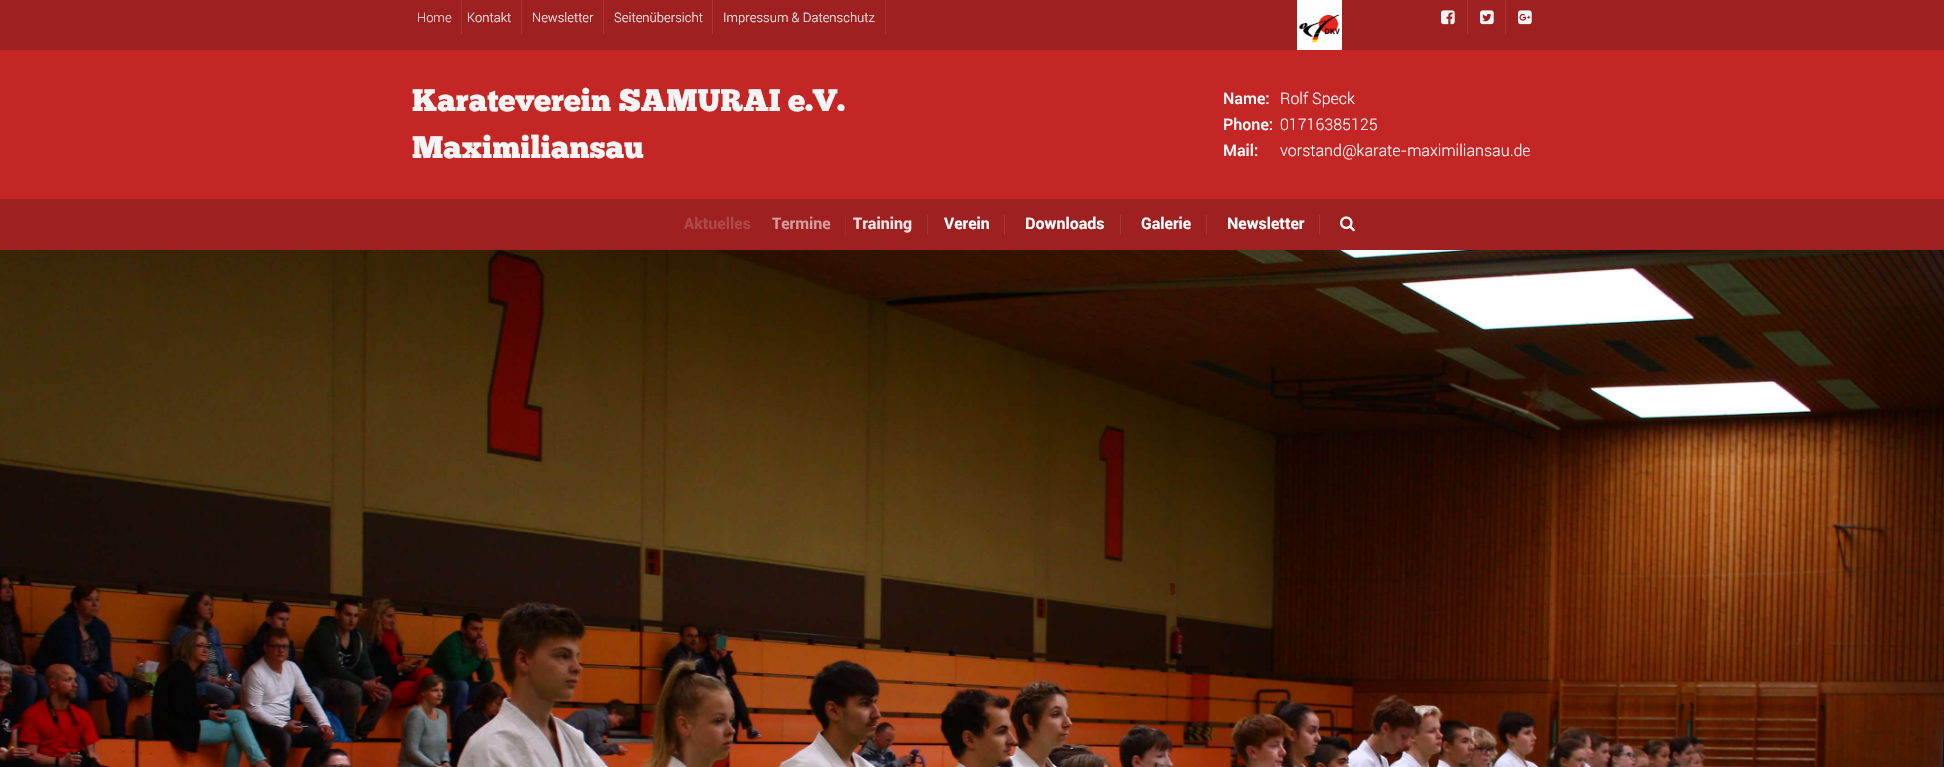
static SkFont makeFont(const char* family, int weight, float size, bool italic = false) {
  SkFontStyle style(weight, SkFontStyle::kNormal_Width,
    italic ? SkFontStyle::kItalic_Slant : SkFontStyle::kUpright_Slant);
  SkFont result(fontMgr->matchFamilyStyle(family, style), size);
  result.setSubpixel(true);
  return result;
}

static void text(SkCanvas* c, const char* s, float x, float y, const SkFont& font, SkColor color) {
  SkPaint ink(SkColor4f::FromColor(color));
  ink.setAntiAlias(true);
  c->drawString(s, x, y, font, ink);
}

static void box(SkCanvas* c, float l, float t, float r, float b, SkColor color) {
  SkPaint ink(SkColor4f::FromColor(color));
  ink.setAntiAlias(true);
  c->drawRect(SkRect::MakeLTRB(l, t, r, b), ink);
}

static void picture(SkCanvas* c, const char* path, float l, float t, float r, float b) {
  auto image = SkImages::DeferredFromEncodedData(SkData::MakeFromFileName(path));
  c->drawImageRect(image, SkRect::MakeLTRB(l, t, r, b), SkSamplingOptions());
}

void draw(SkCanvas* c) {
  SkPaint paint;
  paint.setAntiAlias(true);
  c->clear(0xff9e2020);
  box(c, 461, 0, 462, 34, 0xffa73434);
  SkFont face1 = makeFont("Roboto", 300, 13);
  text(c, "Home", 417, 22, face1, 0xffebdddd);
  box(c, 521, 0, 522, 34, 0xffa83636);
  text(c, "Kontakt", 467, 22, face1, 0xfff5f5f5);
  box(c, 603, 0, 604, 34, 0xffa83636);
  text(c, "Newsletter", 532, 22, face1, 0xfff5f5f5);
  box(c, 712, 0, 713, 34, 0xffa83636);
  text(c, "Seitenübersicht", 614, 22, face1, 0xfff5f5f5);
  box(c, 885, 0, 886, 34, 0xffa83636);
  text(c, "Impressum & Datenschutz", 723, 22, face1, 0xfff5f5f5);
  picture(c, "img_01.png", 1297, 0, 1342, 50);
  box(c, 1467, 0, 1468, 34, 0xffa83636);
  picture(c, "img_02.png", 1441, 10, 1455, 25);
  box(c, 1505, 0, 1506, 34, 0xffa83636);
  picture(c, "img_03.png", 1480, 10, 1494, 25);
  picture(c, "img_04.png", 1518, 10, 1532, 25);
  box(c, 0, 50, 1944, 199, 0xffc42525);
  SkFont face2 = makeFont("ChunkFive", 400, 31);
  text(c, "Karateverein SAMURAI e.V.", 412, 111, face2, 0xfff5f5f5);
  text(c, "Maximiliansau", 412, 158, face2, 0xfff5f5f5);
  SkFont face3 = makeFont("Roboto", 500, 16);
  text(c, "Name:", 1223, 104, face3, 0xffffffff);
  SkFont face4 = makeFont("Roboto", 300, 16);
  text(c, "Rolf Speck", 1280, 104, face4, 0xffffffff);
  text(c, "Phone:", 1223, 130, face3, 0xffffffff);
  text(c, "01716385125", 1280, 130, face4, 0xffffffff);
  text(c, "Mail:", 1223, 156, face3, 0xffffffff);
  text(c, "vorstand@karate-maximiliansau.de", 1280, 156, face4, 0xffffffff);
  SkFont face5 = makeFont("Roboto", 700, 16);
  text(c, "Aktuelles", 684, 229, face5, 0xffb04949);
  box(c, 766, 215, 767, 235, 0xffa02424);
  text(c, "Termine", 772, 229, face5, 0xffd49d9d);
  box(c, 845, 215, 846, 235, 0xffa32d2d);
  text(c, "Training", 853, 229, face5, 0xfff4e5e5);
  box(c, 927, 215, 928, 235, 0xffa73434);
  text(c, "Verein", 944, 229, face5, 0xffffffff);
  box(c, 1004, 215, 1005, 235, 0xffa83636);
  text(c, "Downloads", 1025, 229, face5, 0xffffffff);
  box(c, 1120, 215, 1121, 235, 0xffa83636);
  text(c, "Galerie", 1141, 229, face5, 0xffffffff);
  box(c, 1206, 215, 1207, 235, 0xffa83636);
  text(c, "Newsletter", 1227, 229, face5, 0xffffffff);
  box(c, 1319, 215, 1320, 235, 0xffa83636);
  picture(c, "img_05.png", 1340, 216, 1355, 232);
  picture(c, "img_06.png", 0, 250, 1944, 767);
}
